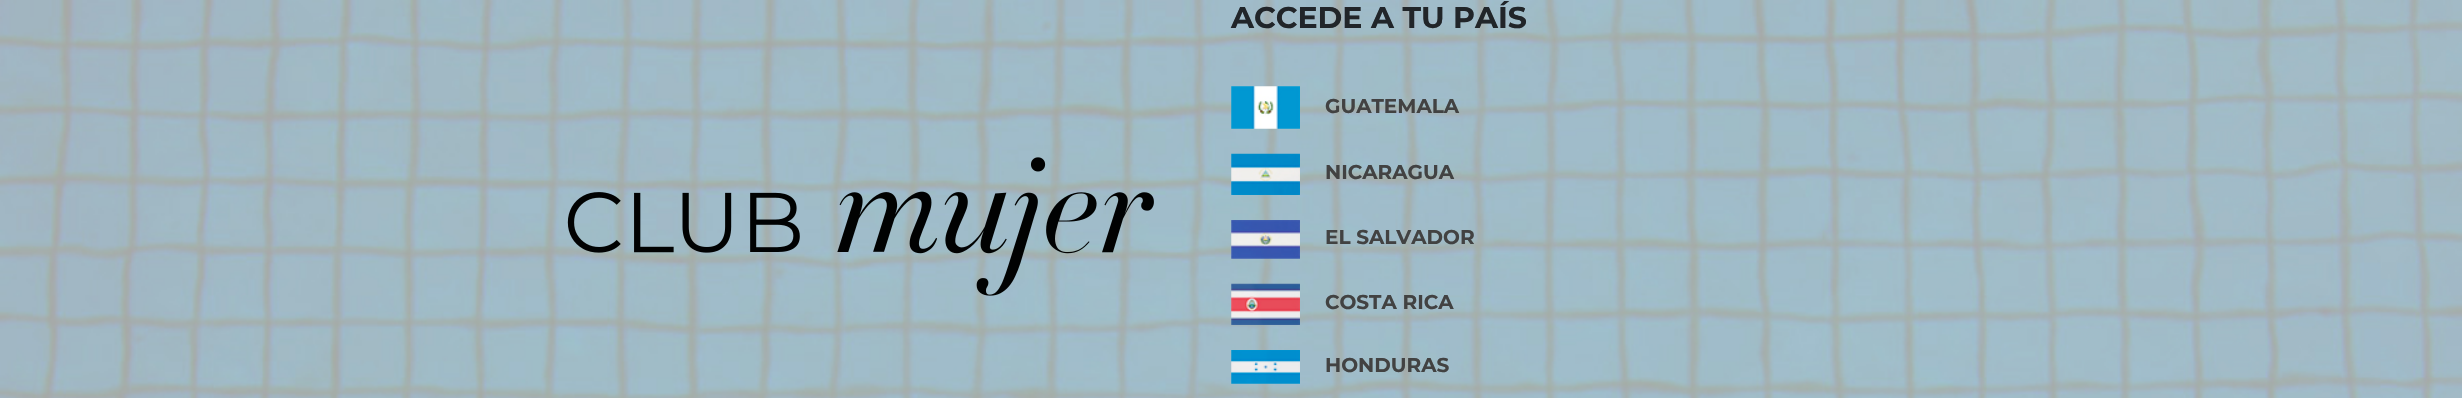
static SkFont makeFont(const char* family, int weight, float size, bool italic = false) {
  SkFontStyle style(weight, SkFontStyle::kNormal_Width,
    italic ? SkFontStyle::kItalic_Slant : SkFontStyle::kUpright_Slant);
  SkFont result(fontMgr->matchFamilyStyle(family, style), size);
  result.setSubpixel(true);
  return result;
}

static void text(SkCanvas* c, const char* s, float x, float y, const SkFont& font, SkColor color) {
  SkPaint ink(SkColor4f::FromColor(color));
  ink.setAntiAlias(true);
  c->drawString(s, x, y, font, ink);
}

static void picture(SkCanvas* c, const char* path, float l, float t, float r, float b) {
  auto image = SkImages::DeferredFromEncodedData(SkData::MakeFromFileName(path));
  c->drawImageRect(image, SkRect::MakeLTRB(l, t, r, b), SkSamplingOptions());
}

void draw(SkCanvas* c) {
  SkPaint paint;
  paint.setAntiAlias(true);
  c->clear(0xffffffff);
  picture(c, "img_01.png", 0, 0, 2462, 398);
  picture(c, "img_02.png", 567, 157, 1154, 296);
  SkFont face1 = makeFont("Montserrat", 700, 30);
  text(c, "ACCEDE A TU PAÍS", 1231, 28, face1, 0xff212529);
  picture(c, "img_03.png", 1231, 86, 1300, 129);
  SkFont face2 = makeFont("Montserrat", 700, 20);
  text(c, "GUATEMALA", 1325, 113, face2, 0xff424242);
  picture(c, "img_04.png", 1231, 153, 1300, 195);
  text(c, "NICARAGUA", 1325, 179, face2, 0xff424242);
  picture(c, "img_05.png", 1231, 220, 1300, 259);
  text(c, "EL SALVADOR", 1325, 244, face2, 0xff424242);
  picture(c, "img_06.png", 1231, 283, 1300, 325);
  text(c, "COSTA RICA", 1325, 309, face2, 0xff424242);
  picture(c, "img_07.png", 1231, 350, 1300, 384);
  text(c, "HONDURAS", 1325, 372, face2, 0xff424242);
}
